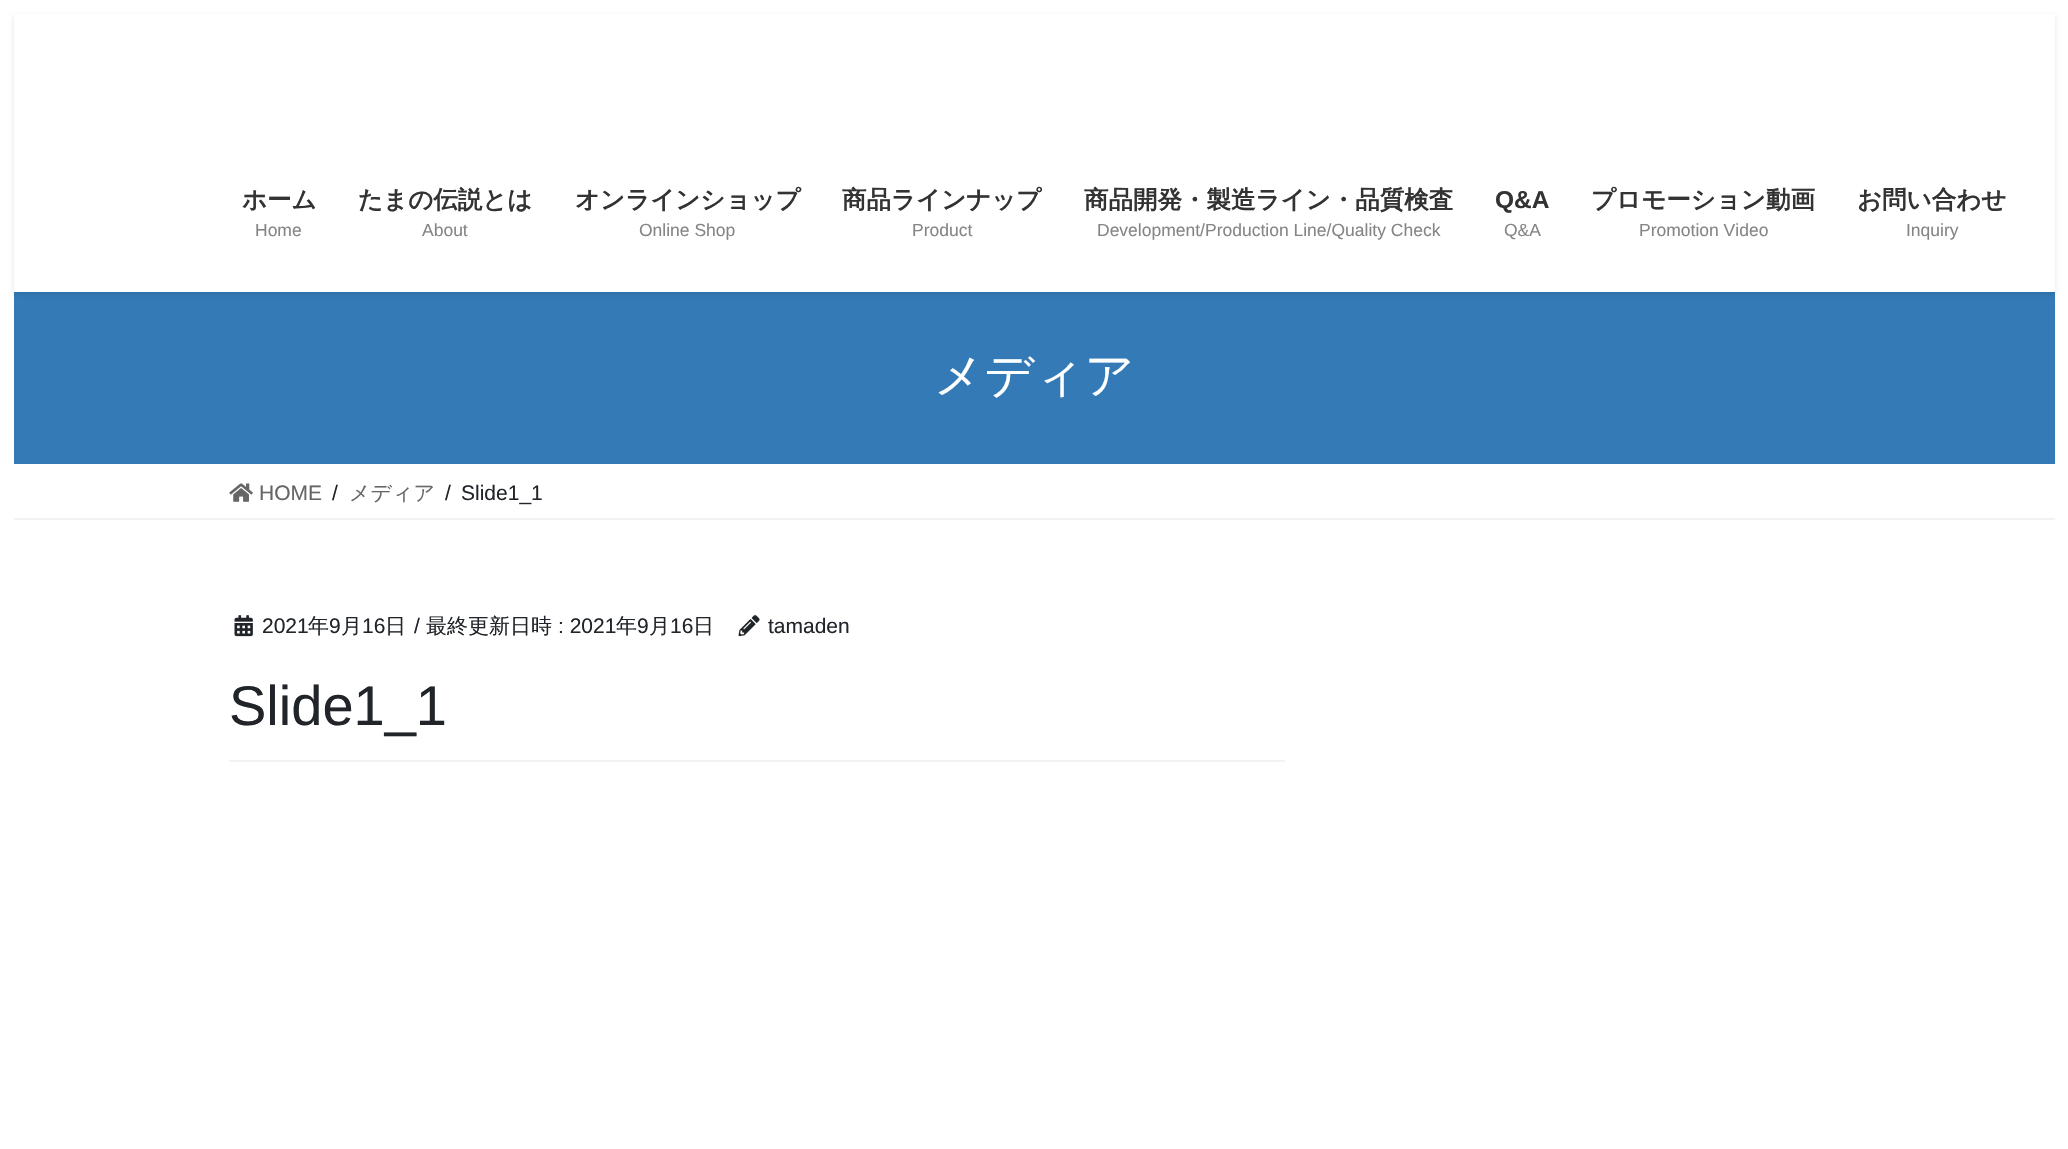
static SkFont makeFont(const char* family, int weight, float size, bool italic = false) {
  SkFontStyle style(weight, SkFontStyle::kNormal_Width,
    italic ? SkFontStyle::kItalic_Slant : SkFontStyle::kUpright_Slant);
  SkFont result(fontMgr->matchFamilyStyle(family, style), size);
  result.setSubpixel(true);
  return result;
}

static void text(SkCanvas* c, const char* s, float x, float y, const SkFont& font, SkColor color) {
  SkPaint ink(SkColor4f::FromColor(color));
  ink.setAntiAlias(true);
  c->drawString(s, x, y, font, ink);
}

static void box(SkCanvas* c, float l, float t, float r, float b, SkColor color) {
  SkPaint ink(SkColor4f::FromColor(color));
  ink.setAntiAlias(true);
  c->drawRect(SkRect::MakeLTRB(l, t, r, b), ink);
}

static void picture(SkCanvas* c, const char* path, float l, float t, float r, float b) {
  auto image = SkImages::DeferredFromEncodedData(SkData::MakeFromFileName(path));
  c->drawImageRect(image, SkRect::MakeLTRB(l, t, r, b), SkSamplingOptions());
}

void draw(SkCanvas* c) {
  SkPaint paint;
  paint.setAntiAlias(true);
  c->clear(0xffffffff);
  box(c, 14, 292, 2055, 464, 0xff337ab7);
  paint.setColor(0x1a000000);
  paint.setMaskFilter(SkMaskFilter::MakeBlur(kNormal_SkBlurStyle, 2.5f));
  c->drawRect(SkRect::MakeLTRB(14, 16, 2055, 294), paint);
  paint.setMaskFilter(nullptr);
  box(c, 14, 14, 2055, 292, 0xffffffff);
  SkFont face1 = makeFont("WenQuanYi Zen Hei", 700, 24.5f);
  text(c, "ホーム", 242, 208, face1, 0xff333333);
  SkFont face2 = makeFont("Liberation Sans", 400, 17.5f);
  text(c, "Home", 255, 236, face2, 0xff858585);
  text(c, "たまの伝説とは", 358, 208, face1, 0xff333333);
  text(c, "About", 422, 236, face2, 0xff858585);
  text(c, "オンラインショップ", 575, 208, face1, 0xff333333);
  text(c, "Online Shop", 639, 236, face2, 0xff858585);
  text(c, "商品ラインナップ", 842, 208, face1, 0xff333333);
  text(c, "Product", 912, 236, face2, 0xff858585);
  text(c, "商品開発・製造ライン・品質検査", 1084, 208, face1, 0xff333333);
  text(c, "Development/Production Line/Quality Check", 1097, 236, face2, 0xff858585);
  SkFont face3 = makeFont("Liberation Sans", 700, 24.5f);
  text(c, "Q&A", 1495, 208, face3, 0xff333333);
  text(c, "Q&A", 1504, 236, face2, 0xff858585);
  text(c, "プロモーション動画", 1591, 208, face1, 0xff333333);
  text(c, "Promotion Video", 1639, 236, face2, 0xff858585);
  text(c, "お問い合わせ", 1857, 208, face1, 0xff333333);
  text(c, "Inquiry", 1906, 236, face2, 0xff858585);
  SkFont face4 = makeFont("WenQuanYi Zen Hei", 500, 49);
  text(c, "メディア", 934, 392, face4, 0xffffffff);
  box(c, 14, 518, 2055, 520, 0xfff2f2f2);
  picture(c, "img_01.png", 229, 483, 253, 502);
  SkFont face5 = makeFont("Liberation Sans", 400, 21);
  text(c, "HOME", 259, 500, face5, 0xff666666);
  text(c, "/", 332, 500, face5, 0xff212529);
  SkFont face6 = makeFont("WenQuanYi Zen Hei", 500, 21);
  text(c, "メディア", 349, 500, face6, 0xff666666);
  text(c, "/", 445, 500, face5, 0xff212529);
  text(c, "Slide1_1", 461, 500, face5, 0xff212529);
  box(c, 229, 760, 1285, 762, 0xfff2f2f2);
  picture(c, "img_02.png", 234, 615, 253, 637);
  text(c, "2021", 262, 633, face5, 0xff212529);
  text(c, "年", 308, 633, face6, 0xff212529);
  text(c, "9", 329, 633, face5, 0xff212529);
  text(c, "月", 341, 633, face6, 0xff212529);
  text(c, "16", 362, 633, face5, 0xff212529);
  text(c, "日", 385, 633, face6, 0xff212529);
  text(c, "/", 414, 633, face5, 0xff212529);
  text(c, "最終更新日時", 426, 633, face6, 0xff212529);
  text(c, ": 2021", 558, 633, face5, 0xff212529);
  text(c, "年", 616, 633, face6, 0xff212529);
  text(c, "9", 637, 633, face5, 0xff212529);
  text(c, "月", 649, 633, face6, 0xff212529);
  text(c, "16", 670, 633, face5, 0xff212529);
  text(c, "日", 693, 633, face6, 0xff212529);
  picture(c, "img_03.png", 738, 615, 760, 637);
  text(c, "tamaden", 768, 633, face5, 0xff212529);
  SkFont face7 = makeFont("Liberation Sans", 400, 56);
  text(c, "Slide1_1", 229, 725, face7, 0xff212529);
}
